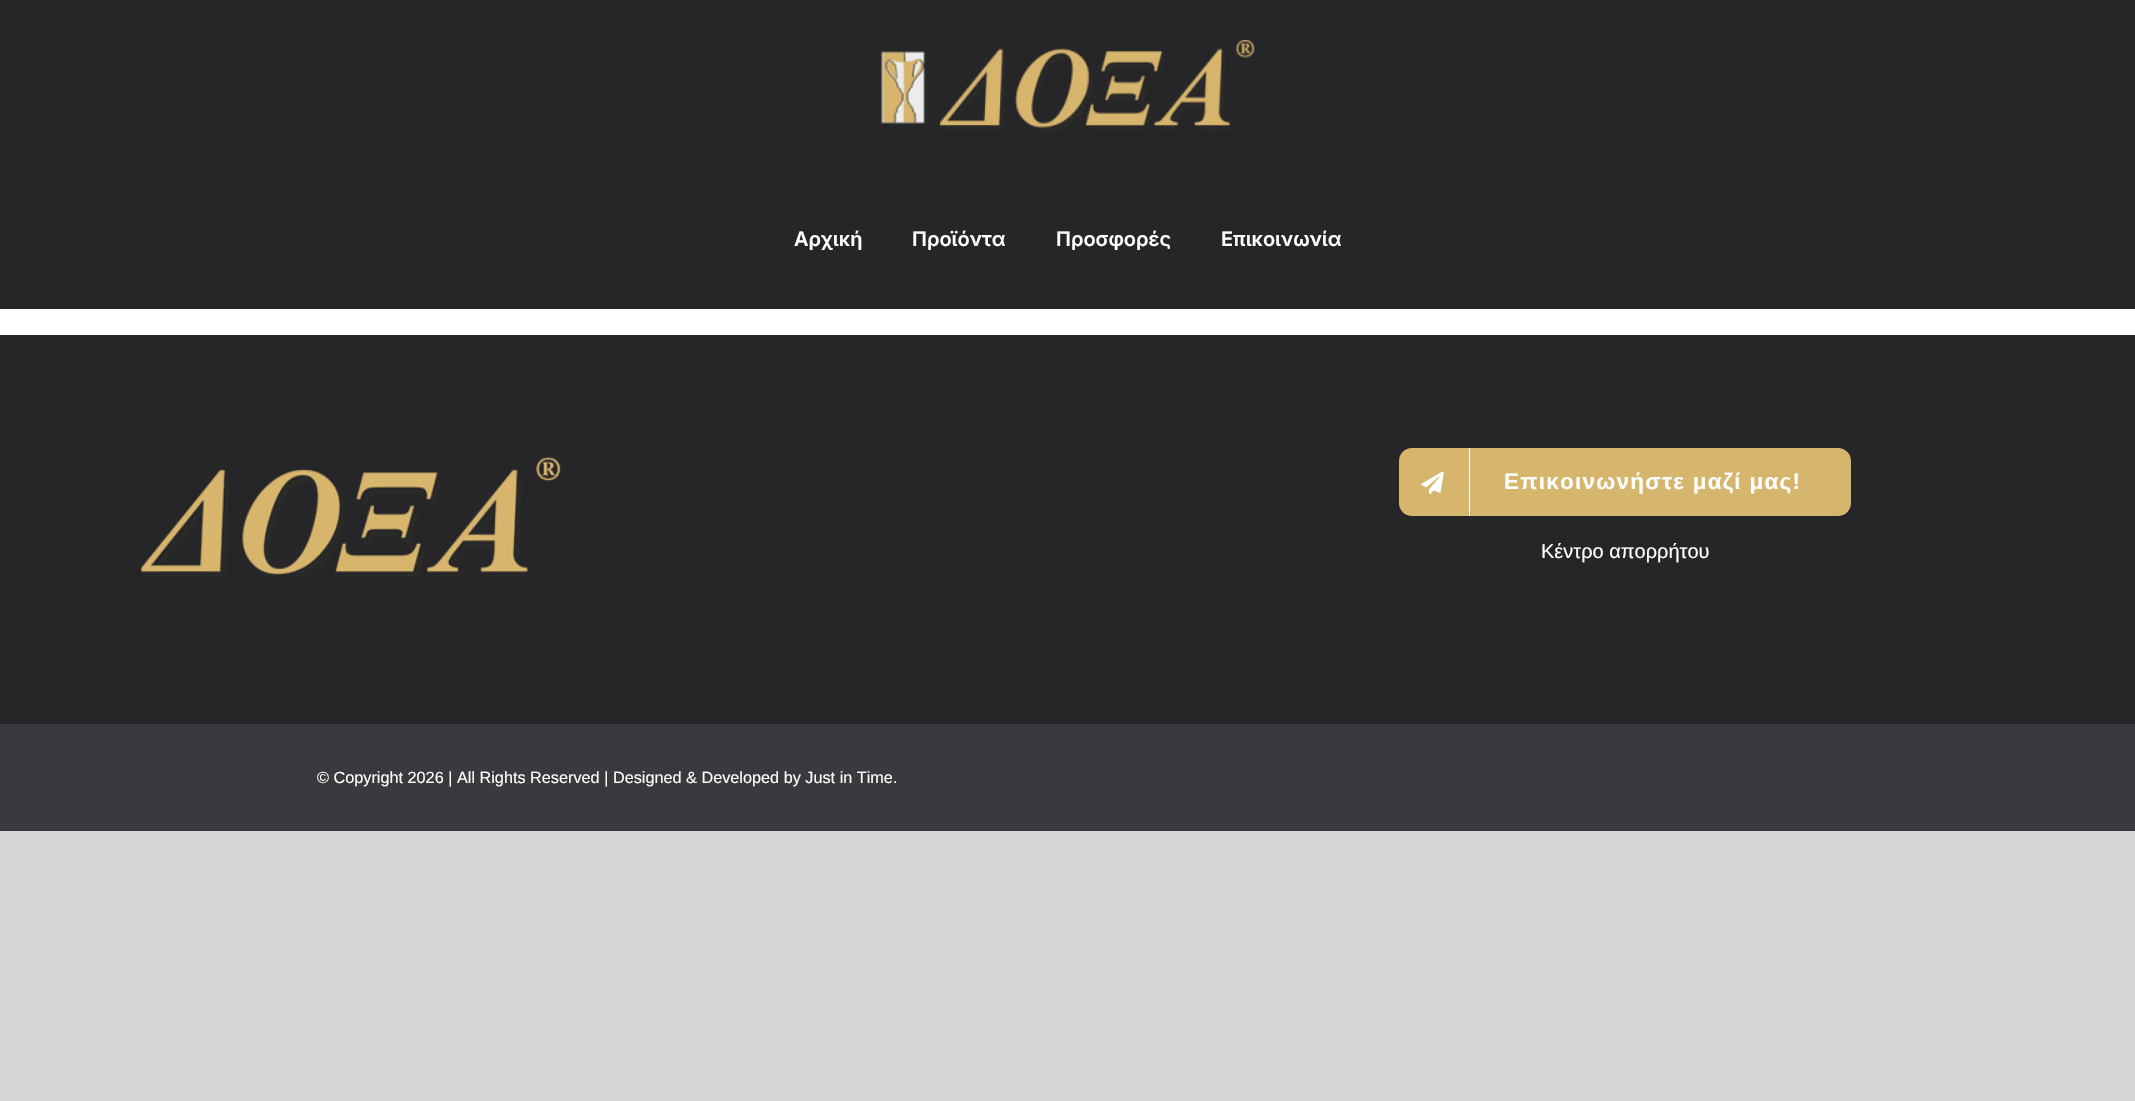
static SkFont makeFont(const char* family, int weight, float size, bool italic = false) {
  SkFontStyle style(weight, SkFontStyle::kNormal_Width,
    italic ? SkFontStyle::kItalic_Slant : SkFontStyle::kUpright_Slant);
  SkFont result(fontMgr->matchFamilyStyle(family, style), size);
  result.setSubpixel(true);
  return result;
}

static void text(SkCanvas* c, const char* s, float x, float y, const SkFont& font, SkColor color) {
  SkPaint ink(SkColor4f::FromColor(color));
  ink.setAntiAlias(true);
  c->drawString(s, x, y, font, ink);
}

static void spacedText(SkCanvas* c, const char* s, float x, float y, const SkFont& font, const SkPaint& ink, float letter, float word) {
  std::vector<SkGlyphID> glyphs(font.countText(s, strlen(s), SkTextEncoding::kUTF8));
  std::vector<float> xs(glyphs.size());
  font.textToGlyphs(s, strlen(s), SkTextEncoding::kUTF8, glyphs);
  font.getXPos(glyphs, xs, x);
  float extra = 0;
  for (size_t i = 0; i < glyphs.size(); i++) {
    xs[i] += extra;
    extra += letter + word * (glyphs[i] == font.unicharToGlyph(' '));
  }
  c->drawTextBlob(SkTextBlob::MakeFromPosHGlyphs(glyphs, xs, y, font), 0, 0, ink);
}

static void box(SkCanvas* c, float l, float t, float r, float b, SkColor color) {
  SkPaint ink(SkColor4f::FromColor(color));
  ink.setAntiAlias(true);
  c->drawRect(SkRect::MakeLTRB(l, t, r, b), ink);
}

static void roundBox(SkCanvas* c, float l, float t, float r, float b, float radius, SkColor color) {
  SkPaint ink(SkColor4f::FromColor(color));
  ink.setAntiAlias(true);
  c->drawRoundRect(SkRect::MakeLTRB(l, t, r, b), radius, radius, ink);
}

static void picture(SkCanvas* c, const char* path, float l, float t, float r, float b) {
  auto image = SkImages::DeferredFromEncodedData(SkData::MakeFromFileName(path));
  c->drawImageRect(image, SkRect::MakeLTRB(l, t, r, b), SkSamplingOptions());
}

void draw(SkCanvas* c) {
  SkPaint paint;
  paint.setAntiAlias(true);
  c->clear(0xffd7d6d6);
  box(c, 0, 309, 2135, 335, 0xffffffff);
  box(c, 0, 0, 2135, 309, 0xff262528);
  picture(c, "img_01.png", 880, 40, 1255, 132);
  SkFont face1 = makeFont("Inter", 600, 20);
  text(c, "Αρχική", 794, 246, face1, 0xffffffff);
  text(c, "Προϊόντα", 912, 246, face1, 0xffffffff);
  text(c, "Προσφορές", 1056, 246, face1, 0xffffffff);
  text(c, "Επικοινωνία", 1221, 246, face1, 0xffffffff);
  box(c, 0, 335, 2135, 724, 0xff262528);
  picture(c, "img_02.png", 140, 457, 561, 577);
  roundBox(c, 1399, 448, 1851, 516, 13, 0xffd6b56c);
  box(c, 1469, 448, 1470, 516, 0xffffffff);
  picture(c, "img_03.png", 1421, 471, 1444, 494);
  SkFont face2 = makeFont("Liberation Sans", 700, 22.5f);
  paint.setColor(0xffffffff);
  spacedText(c, "Επικοινωνήστε μαζί μας!", 1504, 489, face2, paint, 1.25f, 0);
  SkFont face3 = makeFont("Liberation Sans", 400, 20);
  text(c, "Κέντρο απορρήτου", 1541, 558, face3, 0xffffffff);
  box(c, 0, 724, 2135, 831, 0xff3b393d);
  SkFont face4 = makeFont("Liberation Sans", 400, 16.25f);
  text(c, "© Copyright 2026 | All Rights Reserved | Designed & Developed by Just in Time.", 317, 783, face4, 0xffffffff);
}
